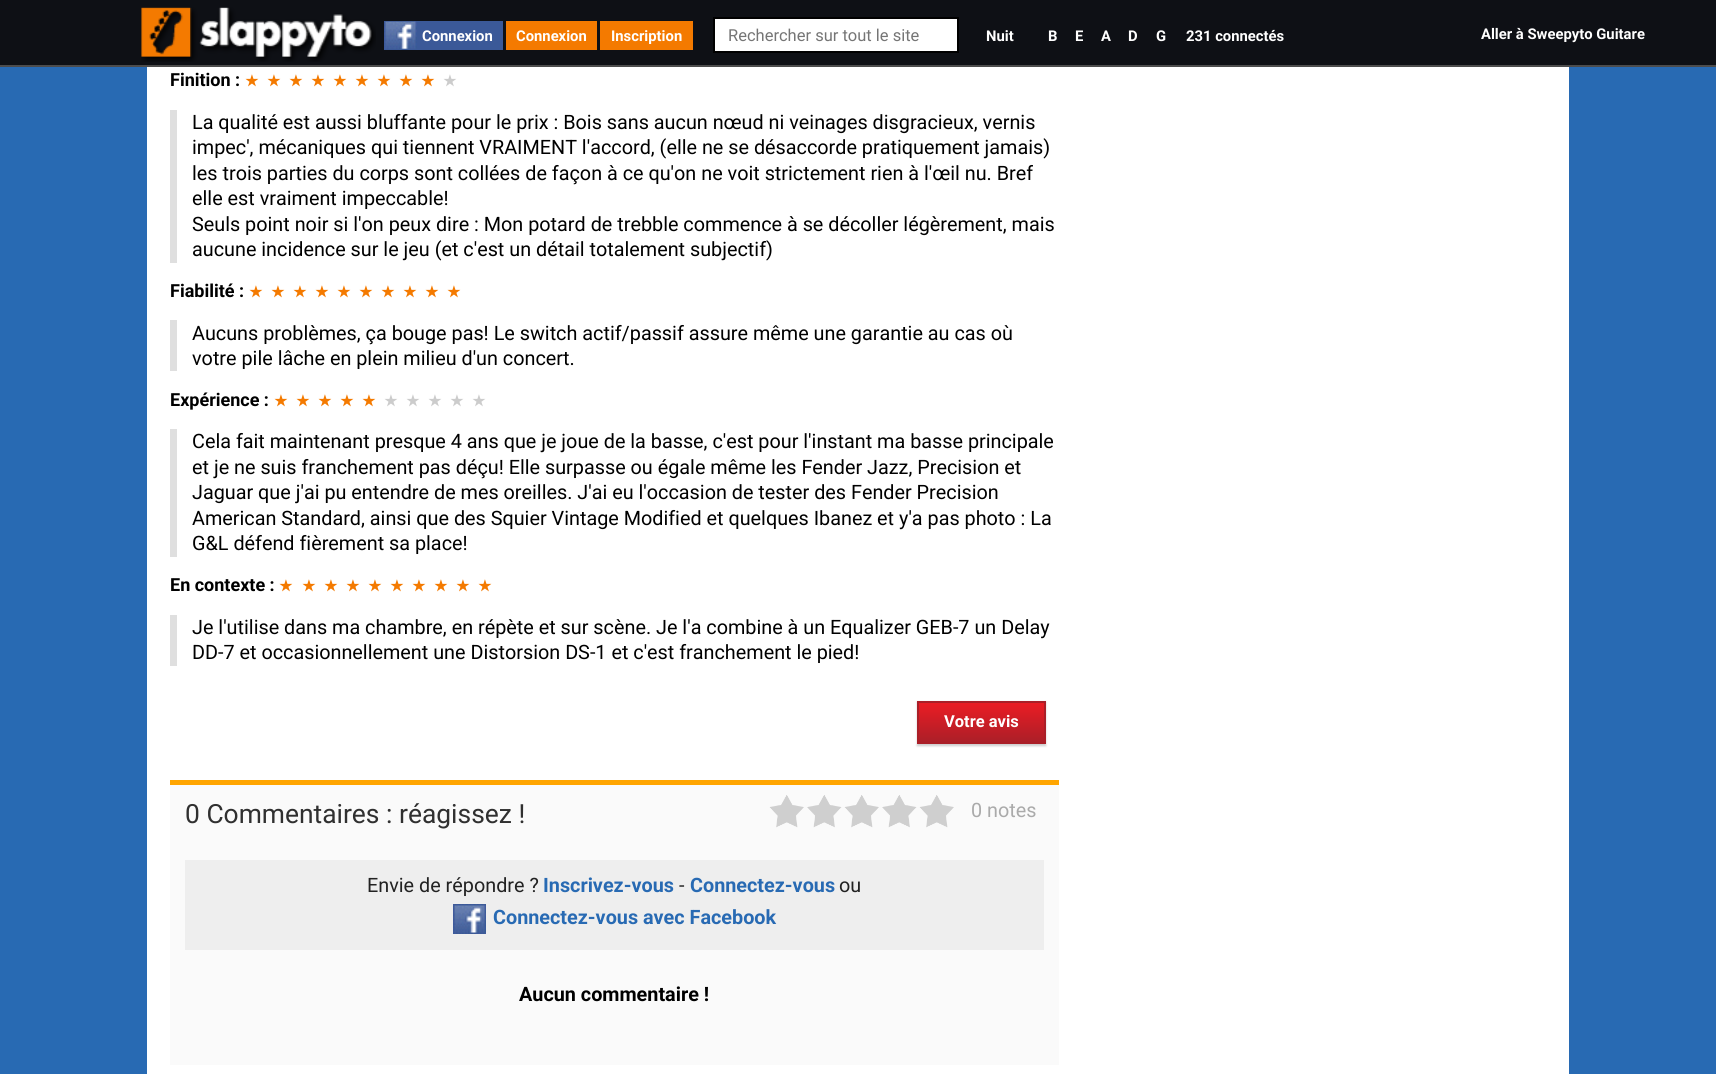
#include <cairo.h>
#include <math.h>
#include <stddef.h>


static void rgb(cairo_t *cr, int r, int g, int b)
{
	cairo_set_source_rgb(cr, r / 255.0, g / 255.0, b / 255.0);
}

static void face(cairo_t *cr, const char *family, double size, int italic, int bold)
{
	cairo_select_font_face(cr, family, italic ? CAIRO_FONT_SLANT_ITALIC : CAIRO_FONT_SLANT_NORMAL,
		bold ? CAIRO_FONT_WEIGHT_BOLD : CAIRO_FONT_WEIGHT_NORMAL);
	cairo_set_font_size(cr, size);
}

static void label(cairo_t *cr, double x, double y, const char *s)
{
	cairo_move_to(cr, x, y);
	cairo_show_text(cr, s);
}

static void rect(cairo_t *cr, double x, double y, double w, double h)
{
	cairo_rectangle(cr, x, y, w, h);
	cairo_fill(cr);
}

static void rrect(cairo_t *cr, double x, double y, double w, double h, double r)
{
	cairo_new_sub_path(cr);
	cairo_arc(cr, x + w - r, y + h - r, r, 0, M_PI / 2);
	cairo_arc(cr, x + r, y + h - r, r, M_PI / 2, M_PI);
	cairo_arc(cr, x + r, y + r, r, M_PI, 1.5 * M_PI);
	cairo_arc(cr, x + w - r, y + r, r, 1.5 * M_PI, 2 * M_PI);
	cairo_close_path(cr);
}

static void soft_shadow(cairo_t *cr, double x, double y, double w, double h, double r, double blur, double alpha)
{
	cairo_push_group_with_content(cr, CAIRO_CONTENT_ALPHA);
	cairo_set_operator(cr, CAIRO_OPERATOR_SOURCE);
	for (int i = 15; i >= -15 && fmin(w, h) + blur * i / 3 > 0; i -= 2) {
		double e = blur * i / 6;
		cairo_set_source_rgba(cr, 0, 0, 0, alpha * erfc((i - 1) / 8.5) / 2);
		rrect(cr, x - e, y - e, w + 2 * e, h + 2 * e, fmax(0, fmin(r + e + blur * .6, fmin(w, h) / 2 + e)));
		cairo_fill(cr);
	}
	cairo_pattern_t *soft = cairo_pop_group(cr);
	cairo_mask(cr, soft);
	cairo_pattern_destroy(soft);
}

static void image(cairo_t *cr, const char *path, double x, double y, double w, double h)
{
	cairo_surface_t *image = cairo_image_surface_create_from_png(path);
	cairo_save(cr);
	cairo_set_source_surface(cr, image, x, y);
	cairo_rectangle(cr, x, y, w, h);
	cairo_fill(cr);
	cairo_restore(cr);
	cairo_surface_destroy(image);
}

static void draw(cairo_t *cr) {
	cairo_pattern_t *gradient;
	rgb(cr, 40, 106, 179);
	cairo_paint(cr);
	rgb(cr, 14, 16, 21);
	rect(cr, 0, 0, 1716, 65);
	rgb(cr, 76, 76, 76);
	rect(cr, 0, 65, 1716, 2);
	image(cr, "image0.png", 141, 7, 235, 55);
	rgb(cr, 59, 89, 152);
	rect(cr, 384, 21, 119, 29);
	image(cr, "image1.png", 384, 21, 33, 28);
	face(cr, "Roboto", 14.8, 0, 1);
	rgb(cr, 255, 255, 255);
	label(cr, 422, 41, "Connexion");
	rgb(cr, 244, 122, 0);
	rect(cr, 506, 21, 91, 29);
	rgb(cr, 255, 255, 255);
	label(cr, 516, 41, "Connexion");
	rgb(cr, 244, 122, 0);
	rect(cr, 600, 21, 93, 29);
	rgb(cr, 255, 255, 255);
	label(cr, 611, 41, "Inscription");
	cairo_rectangle(cr, 714, 18, 244, 34);
	cairo_fill_preserve(cr);
	rgb(cr, 0, 0, 0);
	cairo_stroke(cr);
	face(cr, "Roboto", 16.5, 0, 0);
	rgb(cr, 117, 117, 117);
	label(cr, 728, 41, "Rechercher sur tout le site");
	face(cr, "Roboto", 14.8, 0, 1);
	rgb(cr, 255, 255, 255);
	label(cr, 986, 41, "Nuit");
	label(cr, 1048, 41, "B");
	label(cr, 1075, 41, "E");
	label(cr, 1101, 41, "A");
	label(cr, 1128, 41, "D");
	label(cr, 1156, 41, "G");
	label(cr, 1186, 41, "231 connectés");
	label(cr, 1481, 39, "Aller à Sweepyto Guitare");
	rect(cr, 147, 67, 1422, 1007);
	face(cr, "Roboto", 18, 0, 1);
	rgb(cr, 0, 0, 0);
	label(cr, 170, 86, "Finition :");
	face(cr, "DejaVu Sans", 15, 0, 1);
	rgb(cr, 244, 122, 0);
	label(cr, 245, 86, "★");
	label(cr, 267, 86, "★");
	label(cr, 289, 86, "★");
	label(cr, 311, 86, "★");
	label(cr, 333, 86, "★");
	label(cr, 355, 86, "★");
	label(cr, 377, 86, "★");
	label(cr, 399, 86, "★");
	label(cr, 421, 86, "★");
	rgb(cr, 204, 204, 204);
	label(cr, 443, 86, "★");
	rgb(cr, 223, 223, 223);
	rect(cr, 170, 110, 7, 153);
	face(cr, "Roboto", 19.8, 0, 0);
	rgb(cr, 0, 0, 0);
	label(cr, 192, 129, "La qualité est aussi bluffante pour le prix : Bois sans aucun nœud ni veinages disgracieux, vernis");
	label(cr, 192, 154, "impec', mécaniques qui tiennent VRAIMENT l'accord, (elle ne se désaccorde pratiquement jamais)");
	label(cr, 192, 180, "les trois parties du corps sont collées de façon à ce qu'on ne voit strictement rien à l'œil nu. Bref");
	label(cr, 192, 205, "elle est vraiment impeccable!");
	label(cr, 192, 231, "Seuls point noir si l'on peux dire : Mon potard de trebble commence à se décoller légèrement, mais");
	label(cr, 192, 256, "aucune incidence sur le jeu (et c'est un détail totalement subjectif)");
	face(cr, "Roboto", 18, 0, 1);
	label(cr, 170, 297, "Fiabilité :");
	face(cr, "DejaVu Sans", 15, 0, 1);
	rgb(cr, 244, 122, 0);
	label(cr, 249, 297, "★");
	label(cr, 271, 297, "★");
	label(cr, 293, 297, "★");
	label(cr, 315, 297, "★");
	label(cr, 337, 297, "★");
	label(cr, 359, 297, "★");
	label(cr, 381, 297, "★");
	label(cr, 403, 297, "★");
	label(cr, 425, 297, "★");
	label(cr, 447, 297, "★");
	rgb(cr, 223, 223, 223);
	rect(cr, 170, 320, 7, 51);
	face(cr, "Roboto", 19.8, 0, 0);
	rgb(cr, 0, 0, 0);
	label(cr, 192, 340, "Aucuns problèmes, ça bouge pas! Le switch actif/passif assure même une garantie au cas où");
	label(cr, 192, 365, "votre pile lâche en plein milieu d'un concert.");
	face(cr, "Roboto", 18, 0, 1);
	label(cr, 170, 406, "Expérience :");
	face(cr, "DejaVu Sans", 15, 0, 1);
	rgb(cr, 244, 122, 0);
	label(cr, 274, 406, "★");
	label(cr, 296, 406, "★");
	label(cr, 318, 406, "★");
	label(cr, 340, 406, "★");
	label(cr, 362, 406, "★");
	rgb(cr, 204, 204, 204);
	label(cr, 384, 406, "★");
	label(cr, 406, 406, "★");
	label(cr, 428, 406, "★");
	label(cr, 450, 406, "★");
	label(cr, 472, 406, "★");
	rgb(cr, 223, 223, 223);
	rect(cr, 170, 429, 7, 128);
	face(cr, "Roboto", 19.8, 0, 0);
	rgb(cr, 0, 0, 0);
	label(cr, 192, 448, "Cela fait maintenant presque 4 ans que je joue de la basse, c'est pour l'instant ma basse principale");
	label(cr, 192, 474, "et je ne suis franchement pas déçu! Elle surpasse ou égale même les Fender Jazz, Precision et");
	label(cr, 192, 499, "Jaguar que j'ai pu entendre de mes oreilles. J'ai eu l'occasion de tester des Fender Precision");
	label(cr, 192, 525, "American Standard, ainsi que des Squier Vintage Modified et quelques Ibanez et y'a pas photo : La");
	label(cr, 192, 550, "G&L défend fièrement sa place!");
	face(cr, "Roboto", 18, 0, 1);
	label(cr, 170, 591, "En contexte :");
	face(cr, "DejaVu Sans", 15, 0, 1);
	rgb(cr, 244, 122, 0);
	label(cr, 279, 591, "★");
	label(cr, 302, 591, "★");
	label(cr, 324, 591, "★");
	label(cr, 346, 591, "★");
	label(cr, 368, 591, "★");
	label(cr, 390, 591, "★");
	label(cr, 412, 591, "★");
	label(cr, 434, 591, "★");
	label(cr, 456, 591, "★");
	label(cr, 478, 591, "★");
	rgb(cr, 223, 223, 223);
	rect(cr, 170, 615, 7, 51);
	face(cr, "Roboto", 19.8, 0, 0);
	rgb(cr, 0, 0, 0);
	label(cr, 192, 634, "Je l'utilise dans ma chambre, en répète et sur scène. Je l'a combine à un Equalizer GEB-7 un Delay");
	label(cr, 192, 659, "DD-7 et occasionnellement une Distorsion DS-1 et c'est franchement le pied!");
	rgb(cr, 0, 0, 0);
	soft_shadow(cr, 917, 702, 129, 44, 0, 1, 0.2);
	gradient = cairo_pattern_create_linear(918, 702, 918, 743);
	cairo_pattern_add_color_stop_rgba(gradient, 0, 0.925, 0.11, 0.141, 1);
	cairo_pattern_add_color_stop_rgba(gradient, 1, 0.667, 0.122, 0.157, 1);
	cairo_set_source(cr, gradient);
	cairo_pattern_destroy(gradient);
	rect(cr, 919, 703, 125, 39);
	cairo_rectangle(cr, 918, 702, 127, 41);
	rgb(cr, 170, 31, 40);
	cairo_stroke(cr);
	face(cr, "Roboto", 16.5, 0, 1);
	rgb(cr, 255, 255, 255);
	label(cr, 944, 727, "Votre avis");
	rgb(cr, 250, 250, 250);
	rect(cr, 170, 785, 889, 280);
	rgb(cr, 255, 165, 0);
	rect(cr, 170, 780, 889, 5);
	face(cr, "Roboto", 26.4, 0, 0);
	rgb(cr, 48, 48, 48);
	label(cr, 185, 823, "0 Commentaires : réagissez !");
	image(cr, "image2.png", 769, 795, 35, 33);
	image(cr, "image3.png", 807, 795, 35, 33);
	image(cr, "image2.png", 844, 795, 35, 33);
	image(cr, "image3.png", 882, 795, 35, 33);
	image(cr, "image4.png", 919, 795, 35, 33);
	face(cr, "Roboto", 19.8, 0, 0);
	rgb(cr, 170, 170, 170);
	label(cr, 971, 817, "0 notes");
	rgb(cr, 238, 238, 238);
	rect(cr, 185, 860, 859, 90);
	rgb(cr, 34, 34, 34);
	label(cr, 367, 892, "Envie de répondre ?");
	face(cr, "Roboto", 19.8, 0, 1);
	rgb(cr, 40, 106, 179);
	label(cr, 543, 892, "Inscrivez-vous");
	face(cr, "Roboto", 19.8, 0, 0);
	rgb(cr, 34, 34, 34);
	label(cr, 679, 892, "-");
	face(cr, "Roboto", 19.8, 0, 1);
	rgb(cr, 40, 106, 179);
	label(cr, 690, 892, "Connectez-vous");
	face(cr, "Roboto", 19.8, 0, 0);
	rgb(cr, 34, 34, 34);
	label(cr, 839, 892, "ou");
	image(cr, "image5.png", 453, 904, 33, 30);
	face(cr, "Roboto", 19.8, 0, 1);
	rgb(cr, 40, 106, 179);
	label(cr, 493, 924, "Connectez-vous avec Facebook");
	rgb(cr, 0, 0, 0);
	label(cr, 519, 1001, "Aucun commentaire !");
}

int main(void) {
	cairo_surface_t *surface = cairo_image_surface_create(CAIRO_FORMAT_RGB24, 1716, 1074);
	cairo_t *cr = cairo_create(surface);
	cairo_font_options_t *options = cairo_font_options_create();
	cairo_font_options_set_hint_metrics(options, CAIRO_HINT_METRICS_OFF);
	cairo_font_options_set_hint_style(options, CAIRO_HINT_STYLE_NONE);
	cairo_set_font_options(cr, options);
	cairo_set_miter_limit(cr, 4);
	draw(cr);
	cairo_surface_write_to_png(surface, "render.png");
	cairo_font_options_destroy(options);
	cairo_destroy(cr);
	cairo_surface_destroy(surface);
	return 0;
}
